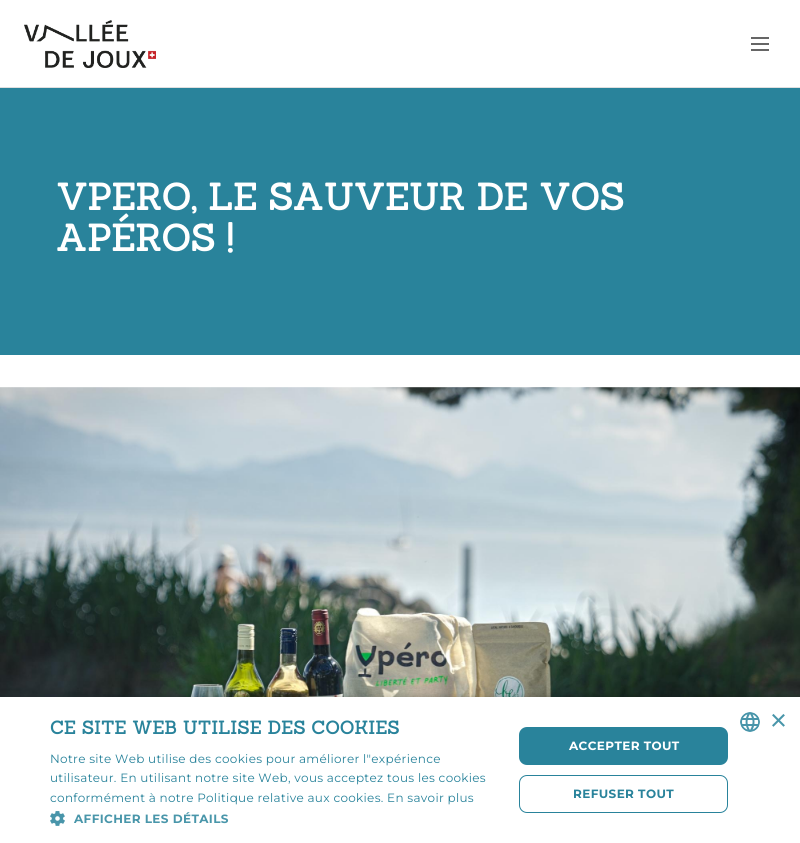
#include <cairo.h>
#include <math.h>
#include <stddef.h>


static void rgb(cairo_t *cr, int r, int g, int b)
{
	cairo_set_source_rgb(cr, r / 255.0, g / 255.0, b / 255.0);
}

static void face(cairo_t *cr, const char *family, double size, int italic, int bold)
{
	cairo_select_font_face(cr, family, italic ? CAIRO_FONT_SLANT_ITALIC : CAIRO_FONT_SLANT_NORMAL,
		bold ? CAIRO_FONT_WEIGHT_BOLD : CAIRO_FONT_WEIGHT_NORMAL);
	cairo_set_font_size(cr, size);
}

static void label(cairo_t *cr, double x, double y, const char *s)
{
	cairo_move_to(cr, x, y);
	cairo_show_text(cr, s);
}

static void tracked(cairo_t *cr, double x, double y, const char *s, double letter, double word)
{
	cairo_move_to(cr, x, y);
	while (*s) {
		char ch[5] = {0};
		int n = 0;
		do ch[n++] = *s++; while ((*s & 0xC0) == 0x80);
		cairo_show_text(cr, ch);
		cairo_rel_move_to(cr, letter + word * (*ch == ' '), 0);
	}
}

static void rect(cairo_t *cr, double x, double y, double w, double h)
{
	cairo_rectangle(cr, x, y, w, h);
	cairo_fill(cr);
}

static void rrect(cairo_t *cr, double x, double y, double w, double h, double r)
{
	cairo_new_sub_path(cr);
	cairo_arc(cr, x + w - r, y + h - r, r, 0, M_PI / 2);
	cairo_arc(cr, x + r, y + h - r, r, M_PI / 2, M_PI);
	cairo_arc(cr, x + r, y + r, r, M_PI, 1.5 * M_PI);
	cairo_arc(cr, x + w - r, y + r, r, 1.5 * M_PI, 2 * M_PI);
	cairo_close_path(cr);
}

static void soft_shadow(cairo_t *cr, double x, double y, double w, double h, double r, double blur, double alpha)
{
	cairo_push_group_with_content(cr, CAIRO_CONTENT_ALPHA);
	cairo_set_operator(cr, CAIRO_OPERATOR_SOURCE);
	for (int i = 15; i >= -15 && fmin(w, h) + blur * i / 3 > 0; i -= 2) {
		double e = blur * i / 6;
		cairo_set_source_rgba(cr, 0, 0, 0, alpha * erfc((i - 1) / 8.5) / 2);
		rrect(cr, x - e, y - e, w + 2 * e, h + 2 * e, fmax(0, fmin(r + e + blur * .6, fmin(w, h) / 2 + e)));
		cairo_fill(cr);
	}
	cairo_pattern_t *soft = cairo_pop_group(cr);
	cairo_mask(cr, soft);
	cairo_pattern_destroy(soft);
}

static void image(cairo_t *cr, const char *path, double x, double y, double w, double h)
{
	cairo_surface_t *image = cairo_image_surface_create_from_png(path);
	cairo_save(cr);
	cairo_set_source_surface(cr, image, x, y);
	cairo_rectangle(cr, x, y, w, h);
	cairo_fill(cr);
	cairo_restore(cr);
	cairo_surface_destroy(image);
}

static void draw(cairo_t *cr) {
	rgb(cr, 255, 255, 255);
	cairo_paint(cr);
	rgb(cr, 223, 223, 223);
	rect(cr, 0, 87, 800, 1);
	image(cr, "image0.png", 24, 20, 132, 48);
	image(cr, "image1.png", 751, 37, 18, 14);
	rgb(cr, 41, 131, 155);
	rect(cr, 0, 88, 800, 267);
	face(cr, "Sanchez", 36.75, 0, 1);
	rgb(cr, 255, 255, 255);
	label(cr, 56, 210, "VPERO, LE SAUVEUR DE VOS");
	label(cr, 56, 251, "APÉROS !");
	image(cr, "image2.png", 0, 387, 800, 310);
	rgb(cr, 0, 0, 0);
	soft_shadow(cr, 1, 699, 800, 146, 0, 4, 0.35);
	rgb(cr, 255, 255, 255);
	rect(cr, 0, 697, 800, 146);
	face(cr, "Sanchez", 18, 0, 1);
	rgb(cr, 41, 131, 155);
	tracked(cr, 50, 734, "CE SITE WEB UTILISE DES COOKIES", 0.3, 0);
	face(cr, "Montserrat Thin", 12, 0, 0);
	tracked(cr, 50, 763, "Notre site Web utilise des cookies pour améliorer l\"expérience", 0.3, 0);
	tracked(cr, 50, 782, "utilisateur. En utilisant notre site Web, vous acceptez tous les cookies", 0.3, 0);
	tracked(cr, 50, 802, "conformément à notre Politique relative aux cookies. En savoir plus", 0.3, 0);
	image(cr, "image3.png", 50, 811, 15, 15);
	face(cr, "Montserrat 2 Thin", 12, 0, 0);
	rgb(cr, 73, 150, 170);
	tracked(cr, 74, 823, "AFFICHER LES DÉTAILS", 0.4, 0);
	rgb(cr, 41, 131, 155);
	rrect(cr, 519, 727, 209, 38, 8);
	cairo_fill(cr);
	rgb(cr, 255, 255, 255);
	tracked(cr, 569, 750, "ACCEPTER TOUT", 0.4, 0);
	rrect(cr, 519.5, 775.5, 208, 37, 7.5);
	rgb(cr, 41, 131, 155);
	cairo_set_line_width(cr, 1);
	cairo_stroke(cr);
	tracked(cr, 573, 798, "REFUSER TOUT", 0.4, 0);
	image(cr, "image4.png", 740, 712, 20, 20);
	face(cr, "Liberation Sans", 29, 0, 0);
	rgb(cr, 73, 150, 170);
	label(cr, 770, 730, "×");
}

int main(void) {
	cairo_surface_t *surface = cairo_image_surface_create(CAIRO_FORMAT_RGB24, 800, 843);
	cairo_t *cr = cairo_create(surface);
	cairo_font_options_t *options = cairo_font_options_create();
	cairo_font_options_set_hint_metrics(options, CAIRO_HINT_METRICS_OFF);
	cairo_font_options_set_hint_style(options, CAIRO_HINT_STYLE_NONE);
	cairo_set_font_options(cr, options);
	cairo_set_miter_limit(cr, 4);
	draw(cr);
	cairo_surface_write_to_png(surface, "render.png");
	cairo_font_options_destroy(options);
	cairo_destroy(cr);
	cairo_surface_destroy(surface);
	return 0;
}
